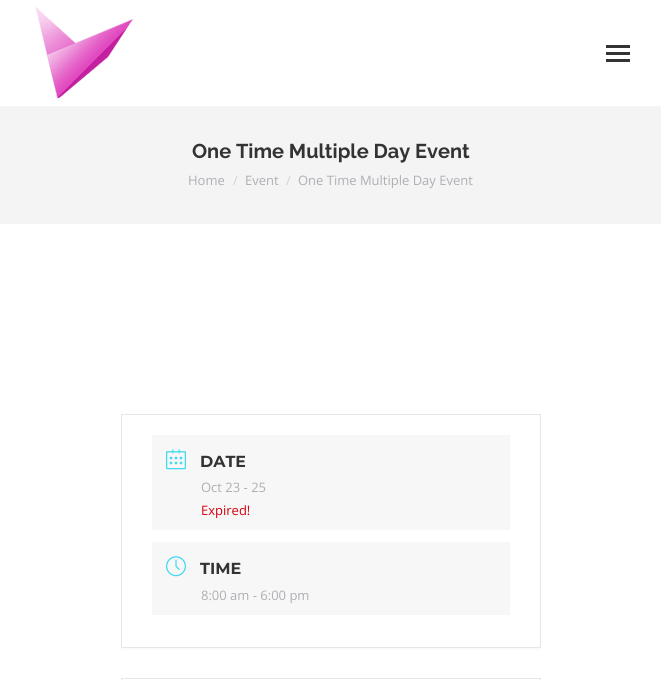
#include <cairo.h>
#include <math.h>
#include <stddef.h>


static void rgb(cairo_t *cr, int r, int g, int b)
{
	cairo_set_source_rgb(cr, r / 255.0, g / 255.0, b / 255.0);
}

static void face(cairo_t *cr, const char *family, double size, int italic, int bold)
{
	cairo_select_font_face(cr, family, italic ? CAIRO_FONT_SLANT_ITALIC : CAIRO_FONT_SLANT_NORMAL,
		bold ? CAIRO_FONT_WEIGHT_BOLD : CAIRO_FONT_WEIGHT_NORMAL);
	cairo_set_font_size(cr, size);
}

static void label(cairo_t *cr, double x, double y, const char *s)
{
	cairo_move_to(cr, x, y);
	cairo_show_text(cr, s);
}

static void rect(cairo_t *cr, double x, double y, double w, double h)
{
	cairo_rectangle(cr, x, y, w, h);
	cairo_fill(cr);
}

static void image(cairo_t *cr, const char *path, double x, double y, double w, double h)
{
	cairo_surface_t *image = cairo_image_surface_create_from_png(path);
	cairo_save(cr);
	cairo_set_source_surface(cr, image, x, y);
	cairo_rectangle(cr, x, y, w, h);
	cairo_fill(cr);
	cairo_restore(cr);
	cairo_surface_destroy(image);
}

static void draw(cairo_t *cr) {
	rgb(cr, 255, 255, 255);
	cairo_paint(cr);
	image(cr, "image0.png", 35, 7, 99, 93);
	rgb(cr, 51, 51, 51);
	rect(cr, 606, 45, 24, 3);
	rect(cr, 606, 52, 24, 3);
	rect(cr, 606, 59, 24, 3);
	rgb(cr, 244, 244, 245);
	rect(cr, 0, 106, 661, 118);
	face(cr, "Raleway", 20, 0, 1);
	rgb(cr, 51, 51, 51);
	label(cr, 192, 158, "One Time Multiple Day Event");
	face(cr, "Open Sans", 13, 0, 0);
	rgb(cr, 173, 175, 179);
	label(cr, 188, 185, "Home");
	rgb(cr, 209, 210, 212);
	label(cr, 233, 185, "/");
	rgb(cr, 173, 175, 179);
	label(cr, 245, 185, "Event");
	rgb(cr, 209, 210, 212);
	label(cr, 286, 185, "/");
	rgb(cr, 173, 175, 179);
	label(cr, 298, 185, "One Time Multiple Day Event");
	rgb(cr, 251, 251, 251);
	rect(cr, 121, 648, 420, 2);
	cairo_rectangle(cr, 121.5, 414.5, 419, 233);
	rgb(cr, 230, 230, 230);
	cairo_set_line_width(cr, 1);
	cairo_stroke(cr);
	rgb(cr, 247, 247, 247);
	rect(cr, 152, 435, 358, 95);
	image(cr, "image1.png", 166, 449, 20, 21);
	face(cr, "Montserrat", 16, 0, 1);
	rgb(cr, 51, 51, 51);
	label(cr, 200, 467, "DATE");
	face(cr, "Open Sans", 13, 0, 0);
	rgb(cr, 173, 175, 179);
	label(cr, 201, 492, "Oct 23 - 25");
	rgb(cr, 216, 0, 12);
	label(cr, 201, 515, "Expired!");
	rgb(cr, 247, 247, 247);
	rect(cr, 152, 542, 358, 73);
	image(cr, "image2.png", 166, 556, 20, 21);
	face(cr, "Montserrat", 16, 0, 1);
	rgb(cr, 51, 51, 51);
	label(cr, 200, 574, "TIME");
	face(cr, "Open Sans", 13, 0, 0);
	rgb(cr, 173, 175, 179);
	label(cr, 201, 600, "8:00 am - 6:00 pm");
	cairo_rectangle(cr, 121.5, 678.5, 419, 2);
	rgb(cr, 230, 230, 230);
	cairo_stroke(cr);
}

int main(void) {
	cairo_surface_t *surface = cairo_image_surface_create(CAIRO_FORMAT_RGB24, 661, 680);
	cairo_t *cr = cairo_create(surface);
	cairo_font_options_t *options = cairo_font_options_create();
	cairo_font_options_set_hint_metrics(options, CAIRO_HINT_METRICS_OFF);
	cairo_font_options_set_hint_style(options, CAIRO_HINT_STYLE_NONE);
	cairo_set_font_options(cr, options);
	cairo_set_miter_limit(cr, 4);
	draw(cr);
	cairo_surface_write_to_png(surface, "render.png");
	cairo_font_options_destroy(options);
	cairo_destroy(cr);
	cairo_surface_destroy(surface);
	return 0;
}
